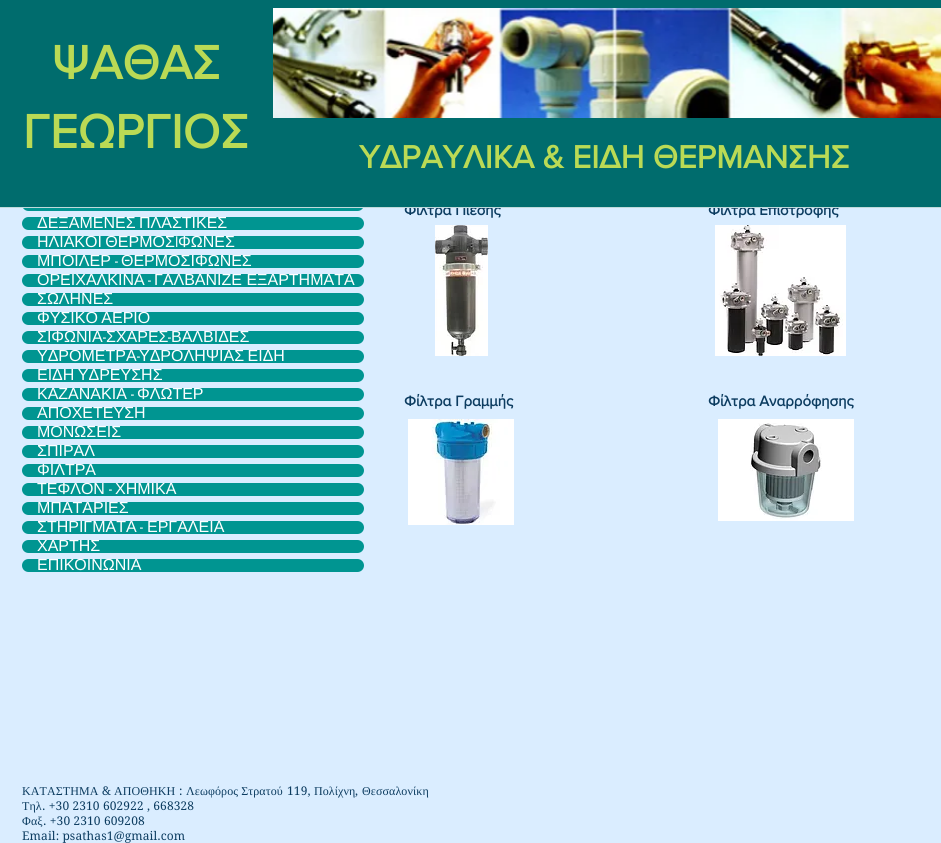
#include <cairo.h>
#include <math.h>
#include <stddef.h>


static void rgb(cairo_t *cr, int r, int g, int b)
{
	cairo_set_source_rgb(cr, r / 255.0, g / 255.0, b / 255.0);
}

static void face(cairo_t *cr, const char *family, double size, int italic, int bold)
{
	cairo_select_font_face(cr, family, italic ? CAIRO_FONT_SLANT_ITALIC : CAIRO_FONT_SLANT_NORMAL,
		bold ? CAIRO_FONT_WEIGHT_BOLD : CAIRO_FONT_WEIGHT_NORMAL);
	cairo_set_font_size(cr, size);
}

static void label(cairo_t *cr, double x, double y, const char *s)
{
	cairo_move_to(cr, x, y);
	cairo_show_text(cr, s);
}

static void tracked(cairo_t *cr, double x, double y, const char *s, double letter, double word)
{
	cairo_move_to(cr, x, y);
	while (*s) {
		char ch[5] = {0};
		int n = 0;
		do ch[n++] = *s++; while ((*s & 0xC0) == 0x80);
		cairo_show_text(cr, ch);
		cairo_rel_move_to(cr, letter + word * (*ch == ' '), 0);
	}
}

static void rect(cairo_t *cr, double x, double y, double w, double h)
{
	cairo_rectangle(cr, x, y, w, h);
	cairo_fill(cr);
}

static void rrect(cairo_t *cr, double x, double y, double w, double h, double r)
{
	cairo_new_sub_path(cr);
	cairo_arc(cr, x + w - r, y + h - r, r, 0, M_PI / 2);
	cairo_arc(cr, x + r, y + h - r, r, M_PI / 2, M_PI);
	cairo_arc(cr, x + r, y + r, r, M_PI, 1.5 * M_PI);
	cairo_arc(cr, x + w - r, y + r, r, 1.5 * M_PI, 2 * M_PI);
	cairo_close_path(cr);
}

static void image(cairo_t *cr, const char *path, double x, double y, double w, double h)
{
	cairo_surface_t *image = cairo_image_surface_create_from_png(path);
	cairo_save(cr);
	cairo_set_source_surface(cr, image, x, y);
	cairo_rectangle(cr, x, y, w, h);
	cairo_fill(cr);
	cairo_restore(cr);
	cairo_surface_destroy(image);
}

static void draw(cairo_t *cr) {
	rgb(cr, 218, 237, 255);
	cairo_paint(cr);
	face(cr, "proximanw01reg", 15, 0, 1);
	rgb(cr, 12, 60, 96);
	label(cr, 404, 215, "Φίλτρα Πίεσης");
	label(cr, 708, 215, "Φίλτρα Επιστροφής");
	rgb(cr, 0, 149, 145);
	rrect(cr, 22, 198, 342, 13, 6.5);
	cairo_fill(cr);
	rgb(cr, 0, 108, 109);
	rect(cr, 0, 0, 941, 207);
	rgb(cr, 191, 218, 219);
	rect(cr, 0, 207, 941, 1);
	face(cr, "proximanw01reg", 49, 0, 1);
	rgb(cr, 186, 218, 85);
	label(cr, 51, 79, "ΨΑΘΑΣ");
	label(cr, 23, 148, "ΓΕΩΡΓΙΟΣ");
	image(cr, "image0.png", 273, 8, 668, 110);
	face(cr, "proximanw01reg", 33, 0, 1);
	label(cr, 359, 168, "ΥΔΡΑΥΛΙΚΑ & ΕΙΔΗ ΘΕΡΜΑΝΣΗΣ");
	rgb(cr, 0, 149, 145);
	rrect(cr, 22, 217, 342, 13, 6.5);
	cairo_fill(cr);
	face(cr, "Liberation Sans", 16, 0, 0);
	rgb(cr, 255, 255, 255);
	tracked(cr, 37, 228, "ΔΕΞΑΜΕΝΕΣ ΠΛΑΣΤΙΚΕΣ", 0, -1);
	rgb(cr, 0, 149, 145);
	rrect(cr, 22, 236, 342, 13, 6.5);
	cairo_fill(cr);
	rgb(cr, 255, 255, 255);
	tracked(cr, 37, 247, "ΗΛΙΑΚΟΙ ΘΕΡΜΟΣ", 0, -1);
	face(cr, "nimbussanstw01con", 16, 0, 0);
	label(cr, 175, 247, "I");
	face(cr, "Liberation Sans", 16, 0, 0);
	label(cr, 178, 247, "ΦΩΝΕΣ");
	rgb(cr, 0, 149, 145);
	rrect(cr, 22, 255, 342, 13, 6.5);
	cairo_fill(cr);
	rgb(cr, 255, 255, 255);
	label(cr, 37, 266, "ΜΠΟΙΛΕΡ");
	face(cr, "nimbussanstw01con", 16, 0, 0);
	label(cr, 115, 266, "-");
	face(cr, "Liberation Sans", 16, 0, 0);
	label(cr, 121, 266, "ΘΕΡΜΟΣΙΦΩΝΕΣ");
	rgb(cr, 0, 149, 145);
	rrect(cr, 22, 274, 342, 13, 6.5);
	cairo_fill(cr);
	rgb(cr, 255, 255, 255);
	label(cr, 37, 285, "ΟΡΕΙΧΑΛΚΙΝΑ");
	face(cr, "nimbussanstw01con", 16, 0, 0);
	label(cr, 148, 285, "-");
	face(cr, "Liberation Sans", 16, 0, 0);
	label(cr, 154, 285, "ΓΑΛΒΑΝΙΖΕ ΕΞΑΡΤΗΜΑΤΑ");
	rgb(cr, 0, 149, 145);
	rrect(cr, 22, 293, 342, 13, 6.5);
	cairo_fill(cr);
	rgb(cr, 255, 255, 255);
	label(cr, 37, 304, "ΣΩΛΗΝΕΣ");
	rgb(cr, 0, 149, 145);
	rrect(cr, 22, 312, 342, 13, 6.5);
	cairo_fill(cr);
	rgb(cr, 255, 255, 255);
	tracked(cr, 37, 323, "ΦΥΣΙΚΟ ΑΕΡΙΟ", 0, -1);
	rgb(cr, 0, 149, 145);
	rrect(cr, 22, 331, 342, 13, 6.5);
	cairo_fill(cr);
	rgb(cr, 255, 255, 255);
	label(cr, 37, 342, "ΣΙΦΩΝΙΑ");
	face(cr, "nimbussanstw01con", 16, 0, 0);
	label(cr, 103, 342, "-");
	face(cr, "Liberation Sans", 16, 0, 0);
	label(cr, 106, 342, "ΣΧΑΡΕΣ");
	face(cr, "nimbussanstw01con", 16, 0, 0);
	label(cr, 168, 342, "-");
	face(cr, "Liberation Sans", 16, 0, 0);
	label(cr, 171, 342, "ΒΑΛΒΙΔΕΣ");
	rgb(cr, 0, 149, 145);
	rrect(cr, 22, 350, 342, 13, 6.5);
	cairo_fill(cr);
	rgb(cr, 255, 255, 255);
	label(cr, 37, 361, "ΥΔΡΟΜΕΤΡΑ");
	face(cr, "nimbussanstw01con", 16, 0, 0);
	label(cr, 137, 361, "-");
	face(cr, "Liberation Sans", 16, 0, 0);
	tracked(cr, 139, 361, "ΥΔΡΟΛΗΨΙΑΣ ΕΙΔΗ", 0, -1);
	rgb(cr, 0, 149, 145);
	rrect(cr, 22, 369, 342, 13, 6.5);
	cairo_fill(cr);
	rgb(cr, 255, 255, 255);
	tracked(cr, 37, 380, "ΕΙΔΗ ΥΔΡΕΥΣΗΣ", 0, -1);
	rgb(cr, 0, 149, 145);
	rrect(cr, 22, 388, 342, 13, 6.5);
	cairo_fill(cr);
	rgb(cr, 255, 255, 255);
	label(cr, 37, 399, "ΚΑΖΑΝΑΚΙΑ");
	face(cr, "nimbussanstw01con", 16, 0, 0);
	label(cr, 131, 399, "-");
	face(cr, "Liberation Sans", 16, 0, 0);
	label(cr, 137, 399, "ΦΛΩΤΕΡ");
	rgb(cr, 0, 149, 145);
	rrect(cr, 22, 407, 342, 13, 6.5);
	cairo_fill(cr);
	rgb(cr, 255, 255, 255);
	label(cr, 37, 418, "ΑΠΟΧΕΤΕΥΣΗ");
	rgb(cr, 0, 149, 145);
	rrect(cr, 22, 426, 342, 13, 6.5);
	cairo_fill(cr);
	rgb(cr, 255, 255, 255);
	label(cr, 37, 437, "ΜΟΝΩΣΕΙΣ");
	rgb(cr, 0, 149, 145);
	rrect(cr, 22, 445, 342, 13, 6.5);
	cairo_fill(cr);
	rgb(cr, 255, 255, 255);
	label(cr, 37, 456, "ΣΠΙΡΑΛ");
	rgb(cr, 0, 149, 145);
	rrect(cr, 22, 464, 342, 13, 6.5);
	cairo_fill(cr);
	rgb(cr, 255, 255, 255);
	label(cr, 37, 475, "ΦΙΛΤΡΑ");
	rgb(cr, 0, 149, 145);
	rrect(cr, 22, 483, 342, 13, 6.5);
	cairo_fill(cr);
	rgb(cr, 255, 255, 255);
	label(cr, 37, 494, "ΤΕΦΛΟΝ");
	face(cr, "nimbussanstw01con", 16, 0, 0);
	label(cr, 109, 494, "-");
	face(cr, "Liberation Sans", 16, 0, 0);
	label(cr, 115, 494, "ΧΗΜΙΚΑ");
	rgb(cr, 0, 149, 145);
	rrect(cr, 22, 502, 342, 13, 6.5);
	cairo_fill(cr);
	rgb(cr, 255, 255, 255);
	label(cr, 37, 513, "ΜΠΑΤΑΡΙΕΣ");
	rgb(cr, 0, 149, 145);
	rrect(cr, 22, 521, 342, 13, 6.5);
	cairo_fill(cr);
	rgb(cr, 255, 255, 255);
	label(cr, 37, 532, "ΣΤΗΡΙΓΜΑΤΑ");
	face(cr, "nimbussanstw01con", 16, 0, 0);
	label(cr, 140, 532, "-");
	face(cr, "Liberation Sans", 16, 0, 0);
	label(cr, 147, 532, "ΕΡΓΑΛΕΙΑ");
	rgb(cr, 0, 149, 145);
	rrect(cr, 22, 540, 342, 13, 6.5);
	cairo_fill(cr);
	rgb(cr, 255, 255, 255);
	label(cr, 37, 551, "ΧΑΡΤΗΣ");
	rgb(cr, 0, 149, 145);
	rrect(cr, 22, 559, 342, 13, 6.5);
	cairo_fill(cr);
	rgb(cr, 255, 255, 255);
	label(cr, 37, 570, "ΕΠΙΚΟΙΝΩΝΙΑ");
	image(cr, "image1.png", 435, 225, 53, 131);
	image(cr, "image2.png", 715, 225, 131, 131);
	face(cr, "proximanw01reg", 15, 0, 1);
	rgb(cr, 12, 60, 96);
	label(cr, 404, 406, "Φίλτρα Γραμμής");
	label(cr, 708, 406, "Φίλτρα Αναρρόφησης");
	image(cr, "image3.png", 408, 419, 106, 106);
	image(cr, "image4.png", 718, 419, 136, 102);
	face(cr, "Liberation Serif", 12, 0, 0);
	tracked(cr, 22, 795, "ΚΑΤΑΣΤΗΜΑ", 0.1, 0);
	face(cr, "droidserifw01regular", 12, 0, 0);
	tracked(cr, 102, 795, "&", 0.1, 0);
	face(cr, "Liberation Serif", 12, 0, 0);
	tracked(cr, 114, 795, "ΑΠΟΘΗΚΗ", 0.1, 0);
	face(cr, "droidserifw01regular", 12, 0, 0);
	tracked(cr, 179, 795, ":", 0.1, 0);
	face(cr, "Liberation Serif", 12, 0, 0);
	tracked(cr, 186, 795, "Λεωφόρος Στρατού", 0.1, 0);
	face(cr, "droidserifw01regular", 12, 0, 0);
	tracked(cr, 287, 795, "119,", 0.1, 0);
	face(cr, "Liberation Serif", 12, 0, 0);
	tracked(cr, 314, 795, "Πολίχνη", 0.1, 0);
	face(cr, "droidserifw01regular", 12, 0, 0);
	tracked(cr, 355, 795, ",", 0.1, 0);
	face(cr, "Liberation Serif", 12, 0, 0);
	tracked(cr, 362, 795, "Θεσσαλονίκη", 0.1, 0);
	tracked(cr, 22, 810, "Τηλ", 0.1, 0);
	face(cr, "droidserifw01regular", 12, 0, 0);
	tracked(cr, 42, 810, ". +30 2310 602922 , 668328", 0.1, 0);
	face(cr, "Liberation Serif", 12, 0, 0);
	tracked(cr, 22, 825, "Φαξ", 0.1, 0);
	face(cr, "droidserifw01regular", 12, 0, 0);
	tracked(cr, 43, 825, ". +30 2310 609208", 0.1, 0);
	tracked(cr, 22, 840, "Email: psathas1@gmail.com", 0.1, 0);
}

int main(void) {
	cairo_surface_t *surface = cairo_image_surface_create(CAIRO_FORMAT_RGB24, 941, 843);
	cairo_t *cr = cairo_create(surface);
	cairo_font_options_t *options = cairo_font_options_create();
	cairo_font_options_set_hint_metrics(options, CAIRO_HINT_METRICS_OFF);
	cairo_font_options_set_hint_style(options, CAIRO_HINT_STYLE_NONE);
	cairo_set_font_options(cr, options);
	cairo_set_miter_limit(cr, 4);
	draw(cr);
	cairo_surface_write_to_png(surface, "render.png");
	cairo_font_options_destroy(options);
	cairo_destroy(cr);
	cairo_surface_destroy(surface);
	return 0;
}
